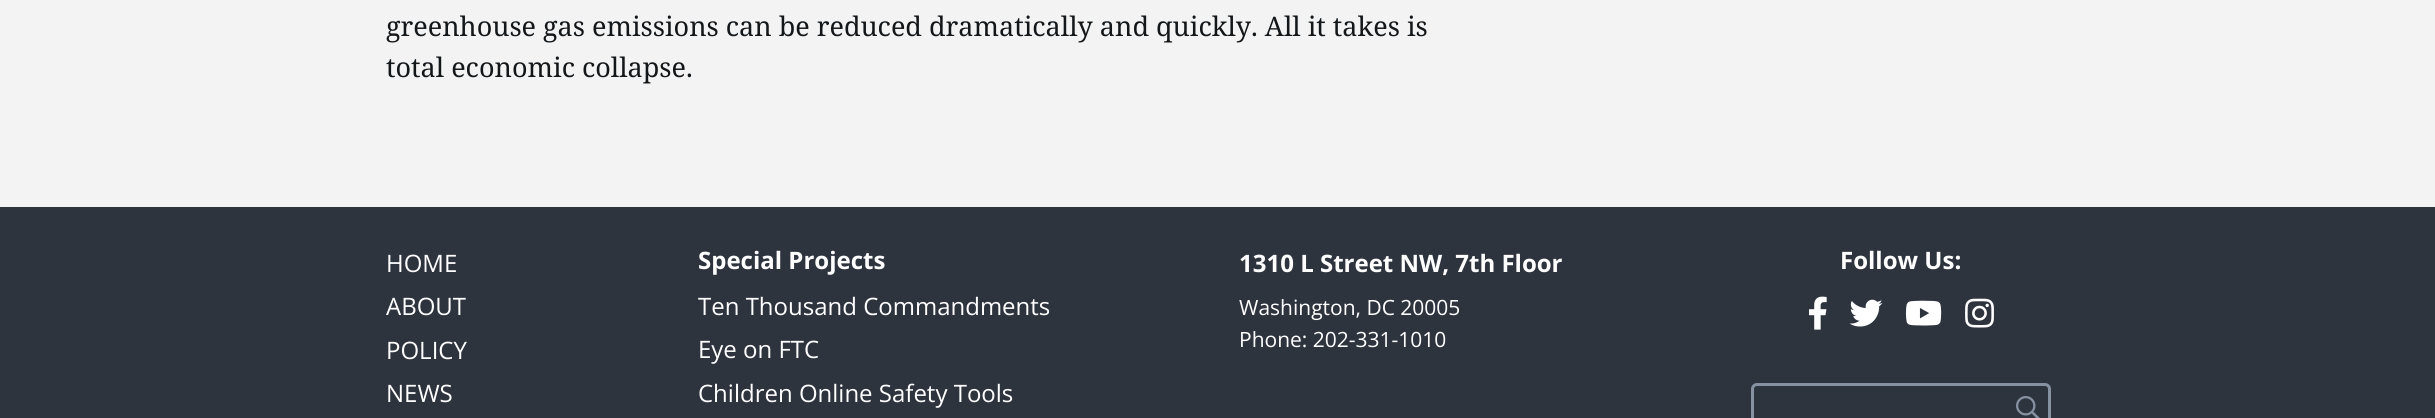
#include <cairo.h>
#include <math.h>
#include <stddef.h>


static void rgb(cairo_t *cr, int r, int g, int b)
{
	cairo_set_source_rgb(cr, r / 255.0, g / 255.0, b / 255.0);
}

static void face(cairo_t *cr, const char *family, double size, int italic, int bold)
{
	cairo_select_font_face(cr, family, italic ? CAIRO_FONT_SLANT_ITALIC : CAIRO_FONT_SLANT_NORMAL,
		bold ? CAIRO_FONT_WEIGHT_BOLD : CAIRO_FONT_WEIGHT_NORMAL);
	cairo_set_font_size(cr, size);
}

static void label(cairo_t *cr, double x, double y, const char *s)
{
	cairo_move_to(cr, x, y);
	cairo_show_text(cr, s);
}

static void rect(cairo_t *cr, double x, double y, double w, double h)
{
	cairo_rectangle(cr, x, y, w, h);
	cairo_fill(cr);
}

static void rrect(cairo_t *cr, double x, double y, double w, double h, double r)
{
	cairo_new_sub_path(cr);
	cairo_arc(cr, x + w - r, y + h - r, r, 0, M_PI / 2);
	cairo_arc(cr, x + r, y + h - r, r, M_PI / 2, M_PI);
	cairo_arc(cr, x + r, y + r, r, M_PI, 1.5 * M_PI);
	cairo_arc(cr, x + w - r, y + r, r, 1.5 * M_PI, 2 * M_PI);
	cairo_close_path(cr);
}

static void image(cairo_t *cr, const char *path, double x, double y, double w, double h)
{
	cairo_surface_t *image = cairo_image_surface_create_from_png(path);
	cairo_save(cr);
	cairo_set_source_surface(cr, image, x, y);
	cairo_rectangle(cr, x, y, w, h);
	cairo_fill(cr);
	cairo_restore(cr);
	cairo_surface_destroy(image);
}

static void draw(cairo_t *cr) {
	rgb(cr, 243, 243, 243);
	cairo_paint(cr);
	face(cr, "Noto Serif", 27, 0, 0);
	rgb(cr, 20, 23, 26);
	label(cr, 386, 36, "greenhouse gas emissions can be reduced dramatically and quickly. All it takes is");
	label(cr, 386, 77, "total economic collapse.");
	rgb(cr, 46, 52, 62);
	rect(cr, 0, 207, 2435, 211);
	face(cr, "Open Sans", 24, 0, 0);
	rgb(cr, 255, 255, 255);
	label(cr, 386, 272, "HOME");
	label(cr, 386, 315, "ABOUT");
	label(cr, 386, 359, "POLICY");
	label(cr, 386, 402, "NEWS");
	face(cr, "Open Sans", 24, 0, 1);
	label(cr, 698, 269, "Special Projects");
	face(cr, "Open Sans", 24, 0, 0);
	label(cr, 698, 315, "Ten Thousand Commandments");
	label(cr, 698, 358, "Eye on FTC");
	label(cr, 698, 402, "Children Online Safety Tools");
	face(cr, "Open Sans", 24, 0, 1);
	label(cr, 1239, 272, "1310 L Street NW, 7th Floor");
	face(cr, "Open Sans", 21, 0, 0);
	label(cr, 1239, 315, "Washington, DC 20005");
	label(cr, 1239, 347, "Phone: 202-331-1010");
	face(cr, "Open Sans", 24, 0, 1);
	label(cr, 1840, 269, "Follow Us:");
	image(cr, "image0.png", 1809, 296, 18, 34);
	image(cr, "image1.png", 1849, 299, 34, 28);
	image(cr, "image2.png", 1905, 300, 37, 26);
	image(cr, "image3.png", 1965, 298, 29, 30);
	rrect(cr, 1752.5, 384.5, 297, 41, 4.5);
	rgb(cr, 134, 145, 162);
	cairo_set_line_width(cr, 3);
	cairo_stroke(cr);
	image(cr, "image4.png", 2016, 396, 24, 22);
}

int main(void) {
	cairo_surface_t *surface = cairo_image_surface_create(CAIRO_FORMAT_RGB24, 2435, 418);
	cairo_t *cr = cairo_create(surface);
	cairo_font_options_t *options = cairo_font_options_create();
	cairo_font_options_set_hint_metrics(options, CAIRO_HINT_METRICS_OFF);
	cairo_font_options_set_hint_style(options, CAIRO_HINT_STYLE_NONE);
	cairo_set_font_options(cr, options);
	cairo_set_miter_limit(cr, 4);
	draw(cr);
	cairo_surface_write_to_png(surface, "render.png");
	cairo_font_options_destroy(options);
	cairo_destroy(cr);
	cairo_surface_destroy(surface);
	return 0;
}
